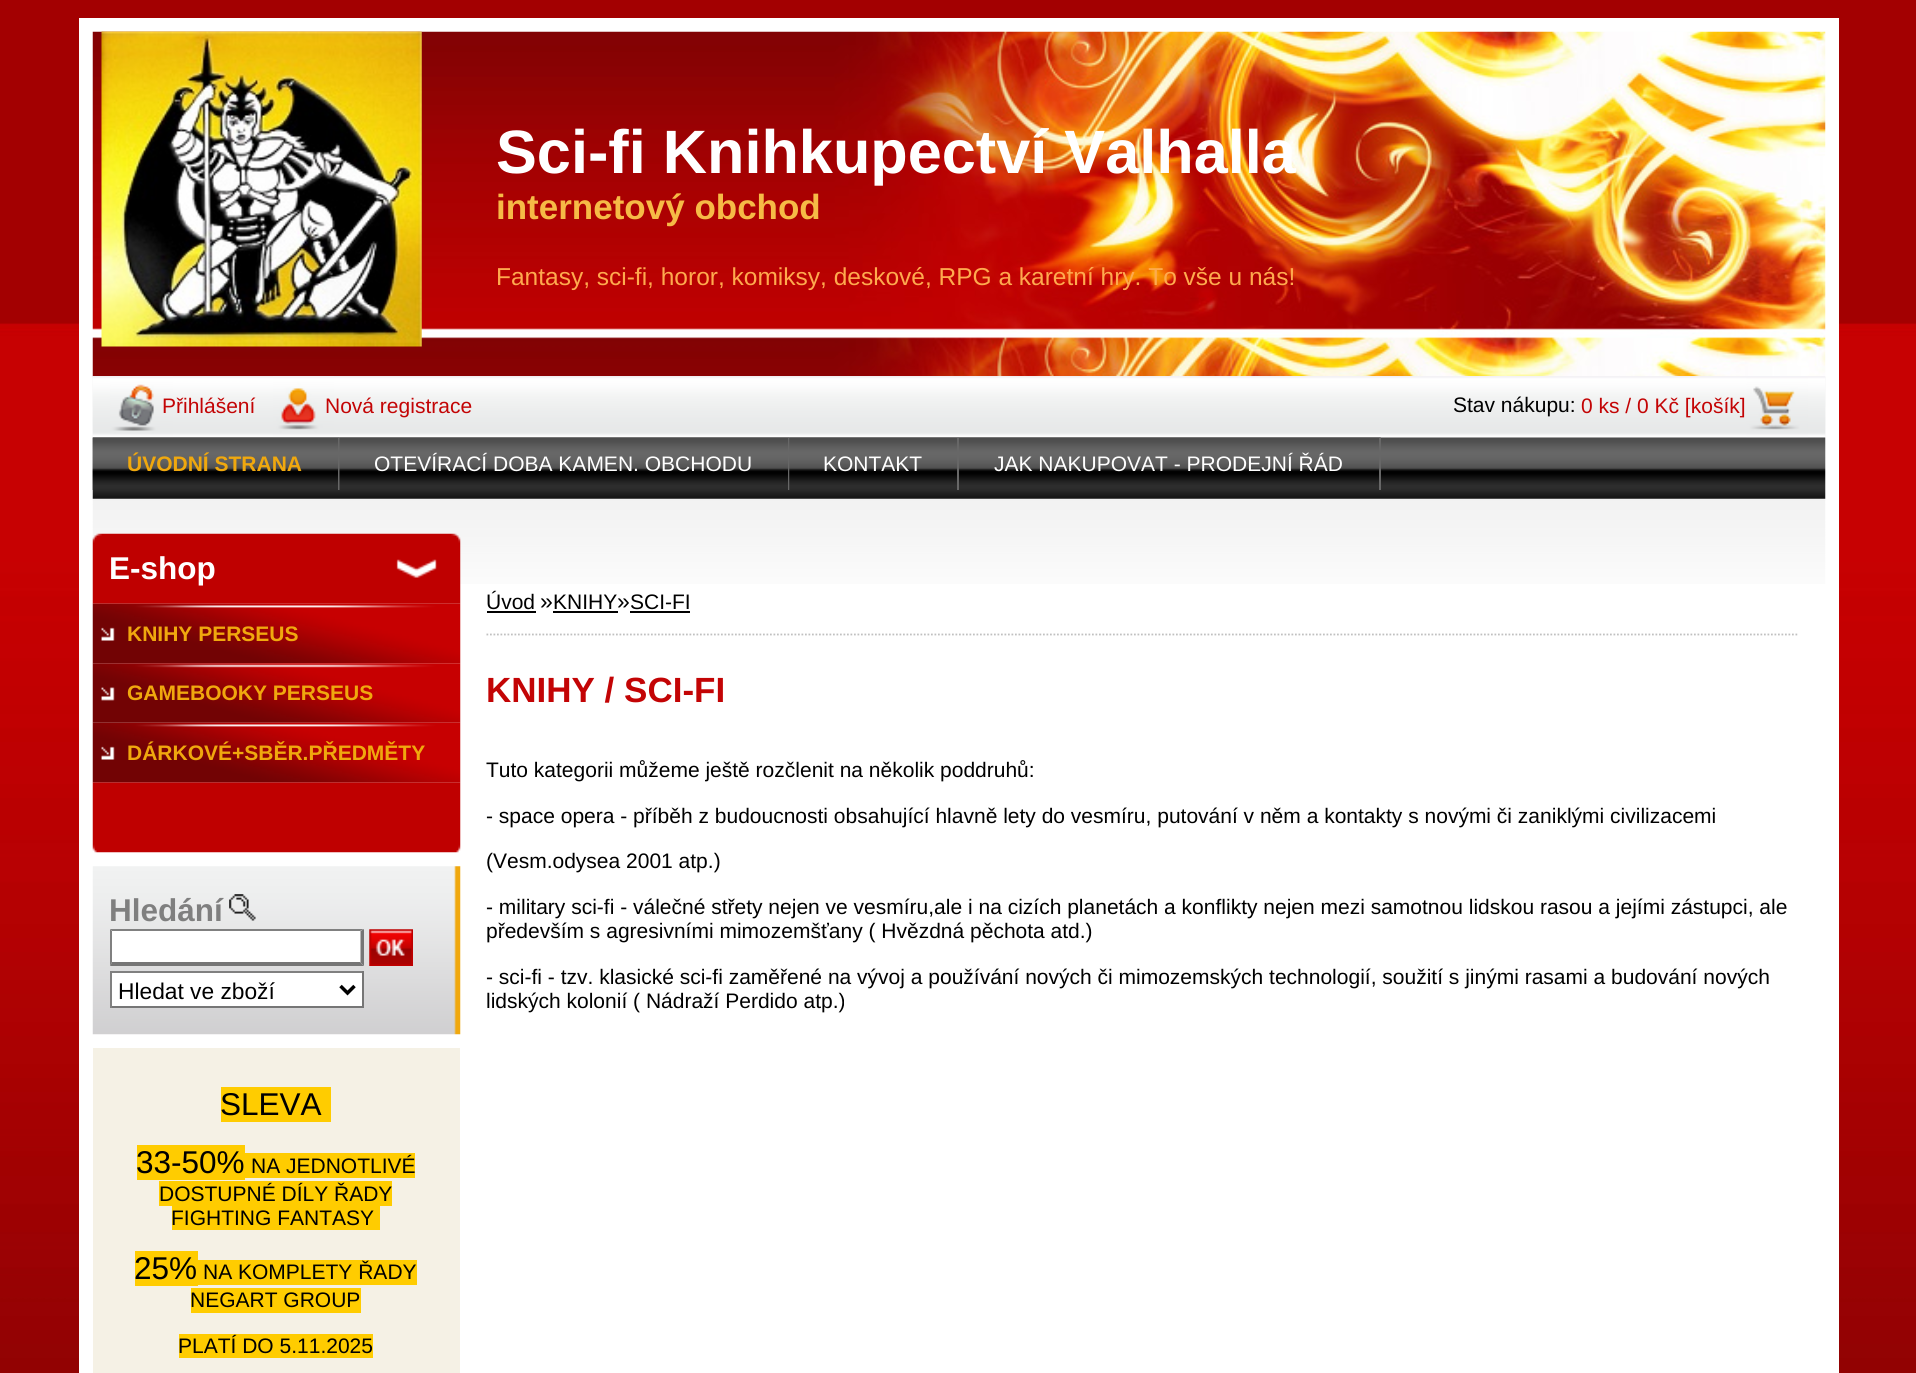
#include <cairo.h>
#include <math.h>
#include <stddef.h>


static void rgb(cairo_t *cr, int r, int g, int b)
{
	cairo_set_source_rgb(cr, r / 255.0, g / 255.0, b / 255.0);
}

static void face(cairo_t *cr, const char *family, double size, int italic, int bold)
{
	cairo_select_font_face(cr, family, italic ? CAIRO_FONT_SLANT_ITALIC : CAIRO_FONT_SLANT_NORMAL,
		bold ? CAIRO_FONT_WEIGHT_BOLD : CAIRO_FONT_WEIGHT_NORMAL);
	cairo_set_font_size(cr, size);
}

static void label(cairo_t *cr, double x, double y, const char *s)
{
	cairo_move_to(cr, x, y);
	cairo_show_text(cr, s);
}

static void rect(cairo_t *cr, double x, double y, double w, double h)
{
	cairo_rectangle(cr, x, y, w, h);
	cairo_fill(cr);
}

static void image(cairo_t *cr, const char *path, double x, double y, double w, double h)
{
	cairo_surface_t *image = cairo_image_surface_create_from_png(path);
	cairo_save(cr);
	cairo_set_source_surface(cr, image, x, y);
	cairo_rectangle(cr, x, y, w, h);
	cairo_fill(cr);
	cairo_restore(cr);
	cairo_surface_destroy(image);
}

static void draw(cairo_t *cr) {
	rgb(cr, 255, 255, 255);
	cairo_paint(cr);
	image(cr, "image0.png", 0, 0, 1916, 1373);
	rgb(cr, 255, 255, 255);
	rect(cr, 79, 18, 1760, 1355);
	image(cr, "image1.png", 92, 31, 1734, 346);
	image(cr, "image2.png", 101, 31, 321, 316);
	face(cr, "Liberation Sans", 61.25, 0, 1);
	label(cr, 496, 173, "Sci-fi Knihkupectví Valhalla");
	face(cr, "Liberation Sans", 35, 0, 1);
	rgb(cr, 246, 186, 70);
	label(cr, 496, 219, "internetový obchod");
	face(cr, "Liberation Sans", 24.5, 0, 0);
	rgb(cr, 254, 170, 78);
	label(cr, 496, 285, "Fantasy, sci-fi, horor, komiksy, deskové, RPG a karetní hry. To vše u nás!");
	image(cr, "image12.png", 92, 376, 1734, 208);
	image(cr, "image3.png", 92, 376, 1734, 62);
	image(cr, "image4.png", 110, 376, 63, 62);
	face(cr, "Liberation Sans", 21, 0, 0);
	rgb(cr, 195, 4, 5);
	label(cr, 162, 413, "Přihlášení");
	image(cr, "image5.png", 273, 376, 61, 62);
	label(cr, 325, 413, "Nová registrace");
	image(cr, "image6.png", 1746, 376, 62, 62);
	rgb(cr, 0, 0, 0);
	label(cr, 1453, 412, "Stav nákupu:");
	rgb(cr, 195, 4, 5);
	label(cr, 1581, 413, "0 ks / 0 Kč [košík]");
	image(cr, "image7.png", 92, 437, 1734, 62);
	image(cr, "image8.png", 92, 437, 248, 53);
	rgb(cr, 103, 103, 103);
	rect(cr, 338, 438, 2, 52);
	face(cr, "Liberation Sans", 21, 0, 1);
	rgb(cr, 240, 168, 14);
	label(cr, 127, 471, "ÚVODNÍ STRANA");
	image(cr, "image9.png", 339, 437, 451, 53);
	rgb(cr, 103, 103, 103);
	rect(cr, 788, 438, 2, 52);
	face(cr, "Liberation Sans", 21, 0, 0);
	rgb(cr, 255, 255, 255);
	label(cr, 374, 471, "OTEVÍRACÍ DOBA KAMEN. OBCHODU");
	image(cr, "image10.png", 789, 437, 170, 53);
	rgb(cr, 103, 103, 103);
	rect(cr, 957, 438, 2, 52);
	rgb(cr, 255, 255, 255);
	label(cr, 823, 471, "KONTAKT");
	image(cr, "image11.png", 959, 437, 422, 1);
	rgb(cr, 103, 103, 103);
	rect(cr, 1379, 438, 2, 52);
	rgb(cr, 255, 255, 255);
	label(cr, 994, 471, "JAK NAKUPOVAT - PRODEJNÍ ŘÁD");
	image(cr, "image13.png", 92, 533, 369, 71);
	face(cr, "Liberation Sans", 31.5, 0, 1);
	label(cr, 109, 579, "E-shop");
	image(cr, "image14.png", 92, 603, 369, 61);
	face(cr, "Liberation Sans", 21, 0, 1);
	rgb(cr, 240, 168, 14);
	label(cr, 127, 641, "KNIHY PERSEUS");
	image(cr, "image15.png", 92, 663, 369, 60);
	label(cr, 127, 700, "GAMEBOOKY PERSEUS");
	image(cr, "image17.png", 92, 782, 369, 71);
	image(cr, "image16.png", 92, 722, 369, 61);
	label(cr, 127, 760, "DÁRKOVÉ+SBĚR.PŘEDMĚTY");
	image(cr, "image18.png", 92, 866, 369, 169);
	face(cr, "Liberation Sans", 31.5, 0, 1);
	rgb(cr, 127, 127, 127);
	label(cr, 109, 921, "Hledání");
	image(cr, "image19.png", 229, 894, 27, 27);
	rgb(cr, 255, 255, 255);
	rect(cr, 110, 929, 254, 37);
	rgb(cr, 128, 128, 128);
	cairo_new_path(cr);
	cairo_move_to(cr, 110, 929);
	cairo_line_to(cr, 364, 929);
	cairo_line_to(cr, 360, 931);
	cairo_line_to(cr, 112, 931);
	cairo_close_path(cr);
	cairo_fill(cr);
	rgb(cr, 118, 118, 118);
	cairo_new_path(cr);
	cairo_move_to(cr, 364, 929);
	cairo_line_to(cr, 364, 966);
	cairo_line_to(cr, 360.5, 962.5);
	cairo_line_to(cr, 360.5, 931);
	cairo_close_path(cr);
	cairo_fill(cr);
	cairo_new_path(cr);
	cairo_move_to(cr, 364, 966);
	cairo_line_to(cr, 110, 966);
	cairo_line_to(cr, 112, 962);
	cairo_line_to(cr, 360, 962);
	cairo_close_path(cr);
	cairo_fill(cr);
	rgb(cr, 128, 128, 128);
	cairo_new_path(cr);
	cairo_move_to(cr, 110, 966);
	cairo_line_to(cr, 110, 929);
	cairo_line_to(cr, 112, 931);
	cairo_line_to(cr, 112, 962.5);
	cairo_close_path(cr);
	cairo_fill(cr);
	image(cr, "image20.png", 369, 929, 44, 37);
	rgb(cr, 255, 255, 255);
	rect(cr, 112, 973, 250, 33);
	rgb(cr, 128, 128, 128);
	rect(cr, 110, 971, 254, 2);
	rgb(cr, 118, 118, 118);
	rect(cr, 362, 971, 2, 37);
	rect(cr, 110, 1006, 254, 2);
	rgb(cr, 128, 128, 128);
	rect(cr, 110, 971, 2, 37);
	cairo_new_path(cr);
	cairo_move_to(cr, 340.5, 986);
	cairo_line_to(cr, 347.5, 993);
	cairo_line_to(cr, 354.5, 986);
	rgb(cr, 0, 0, 0);
	cairo_set_line_width(cr, 3.5);
	cairo_stroke(cr);
	face(cr, "Liberation Sans", 22.75, 0, 0);
	label(cr, 118, 999, "Hledat ve zboží");
	rgb(cr, 245, 241, 229);
	rect(cr, 93, 1048, 367, 325);
	rgb(cr, 255, 204, 0);
	rect(cr, 221, 1087, 110, 35);
	face(cr, "Liberation Sans", 31.5, 0, 0);
	rgb(cr, 0, 0, 0);
	label(cr, 220, 1115, "SLEVA");
	rgb(cr, 255, 204, 0);
	rect(cr, 137, 1145, 108, 35);
	rgb(cr, 0, 0, 0);
	label(cr, 136, 1173, "33-50%");
	rgb(cr, 255, 204, 0);
	rect(cr, 245, 1153, 170, 25);
	face(cr, "Liberation Sans", 21, 0, 0);
	rgb(cr, 0, 0, 0);
	label(cr, 251, 1173, "NA JEDNOTLIVÉ");
	rgb(cr, 255, 204, 0);
	rect(cr, 159, 1181, 233, 25);
	rgb(cr, 0, 0, 0);
	label(cr, 159, 1201, "DOSTUPNÉ DÍLY ŘADY");
	rgb(cr, 255, 204, 0);
	rect(cr, 172, 1206, 208, 24);
	rgb(cr, 0, 0, 0);
	label(cr, 171, 1225, "FIGHTING FANTASY");
	rgb(cr, 255, 204, 0);
	rect(cr, 135, 1251, 63, 35);
	face(cr, "Liberation Sans", 31.5, 0, 0);
	rgb(cr, 0, 0, 0);
	label(cr, 134, 1279, "25%");
	rgb(cr, 255, 204, 0);
	rect(cr, 198, 1260, 219, 25);
	face(cr, "Liberation Sans", 21, 0, 0);
	rgb(cr, 0, 0, 0);
	label(cr, 203, 1279, "NA KOMPLETY ŘADY");
	rgb(cr, 255, 204, 0);
	rect(cr, 191, 1288, 170, 25);
	rgb(cr, 0, 0, 0);
	label(cr, 190, 1307, "NEGART GROUP");
	rgb(cr, 255, 204, 0);
	rect(cr, 179, 1334, 194, 24);
	rgb(cr, 0, 0, 0);
	label(cr, 178, 1353, "PLATÍ DO 5.11.2025");
	cairo_new_path(cr);
	cairo_move_to(cr, 486.5, 634.5);
	cairo_line_to(cr, 1799, 634.5);
	rgb(cr, 192, 192, 192);
	cairo_set_line_width(cr, 1.8);
	cairo_set_dash(cr, (double[]){1.75, 1.75}, 2, 0);
	cairo_stroke(cr);
	rgb(cr, 0, 0, 0);
	label(cr, 486, 609, "Úvod");
	rect(cr, 487, 611, 49, 2);
	face(cr, "Liberation Sans", 23, 0, 0);
	label(cr, 540, 609, "»");
	face(cr, "Liberation Sans", 21, 0, 0);
	label(cr, 553, 609, "KNIHY");
	rect(cr, 553, 611, 65, 2);
	face(cr, "Liberation Sans", 23, 0, 0);
	label(cr, 617, 609, "»");
	face(cr, "Liberation Sans", 21, 0, 0);
	label(cr, 630, 609, "SCI-FI");
	rect(cr, 630, 611, 60, 2);
	face(cr, "Liberation Sans", 35, 0, 1);
	rgb(cr, 195, 4, 5);
	label(cr, 486, 702, "KNIHY / SCI-FI");
	face(cr, "Liberation Sans", 21, 0, 0);
	rgb(cr, 0, 0, 0);
	label(cr, 486, 777, "Tuto kategorii můžeme ještě rozčlenit na několik poddruhů:");
	label(cr, 486, 823, "- space opera - příběh z budoucnosti obsahující hlavně lety do vesmíru, putování v něm a kontakty s novými či zaniklými civilizacemi");
	label(cr, 486, 868, "(Vesm.odysea 2001 atp.)");
	label(cr, 486, 914, "- military sci-fi - válečné střety nejen ve vesmíru,ale i na cizích planetách a konflikty nejen mezi samotnou lidskou rasou a jejími zástupci, ale");
	label(cr, 486, 938, "především s agresivními mimozemšťany ( Hvězdná pěchota atd.)");
	label(cr, 486, 984, "- sci-fi - tzv. klasické sci-fi zaměřené na vývoj a používání nových či mimozemských technologií, soužití s jinými rasami a budování nových");
	label(cr, 486, 1008, "lidských kolonií ( Nádraží Perdido atp.)");
}

int main(void) {
	cairo_surface_t *surface = cairo_image_surface_create(CAIRO_FORMAT_RGB24, 1916, 1373);
	cairo_t *cr = cairo_create(surface);
	cairo_font_options_t *options = cairo_font_options_create();
	cairo_font_options_set_hint_metrics(options, CAIRO_HINT_METRICS_OFF);
	cairo_font_options_set_hint_style(options, CAIRO_HINT_STYLE_NONE);
	cairo_set_font_options(cr, options);
	cairo_set_miter_limit(cr, 4);
	draw(cr);
	cairo_surface_write_to_png(surface, "render.png");
	cairo_font_options_destroy(options);
	cairo_destroy(cr);
	cairo_surface_destroy(surface);
	return 0;
}
